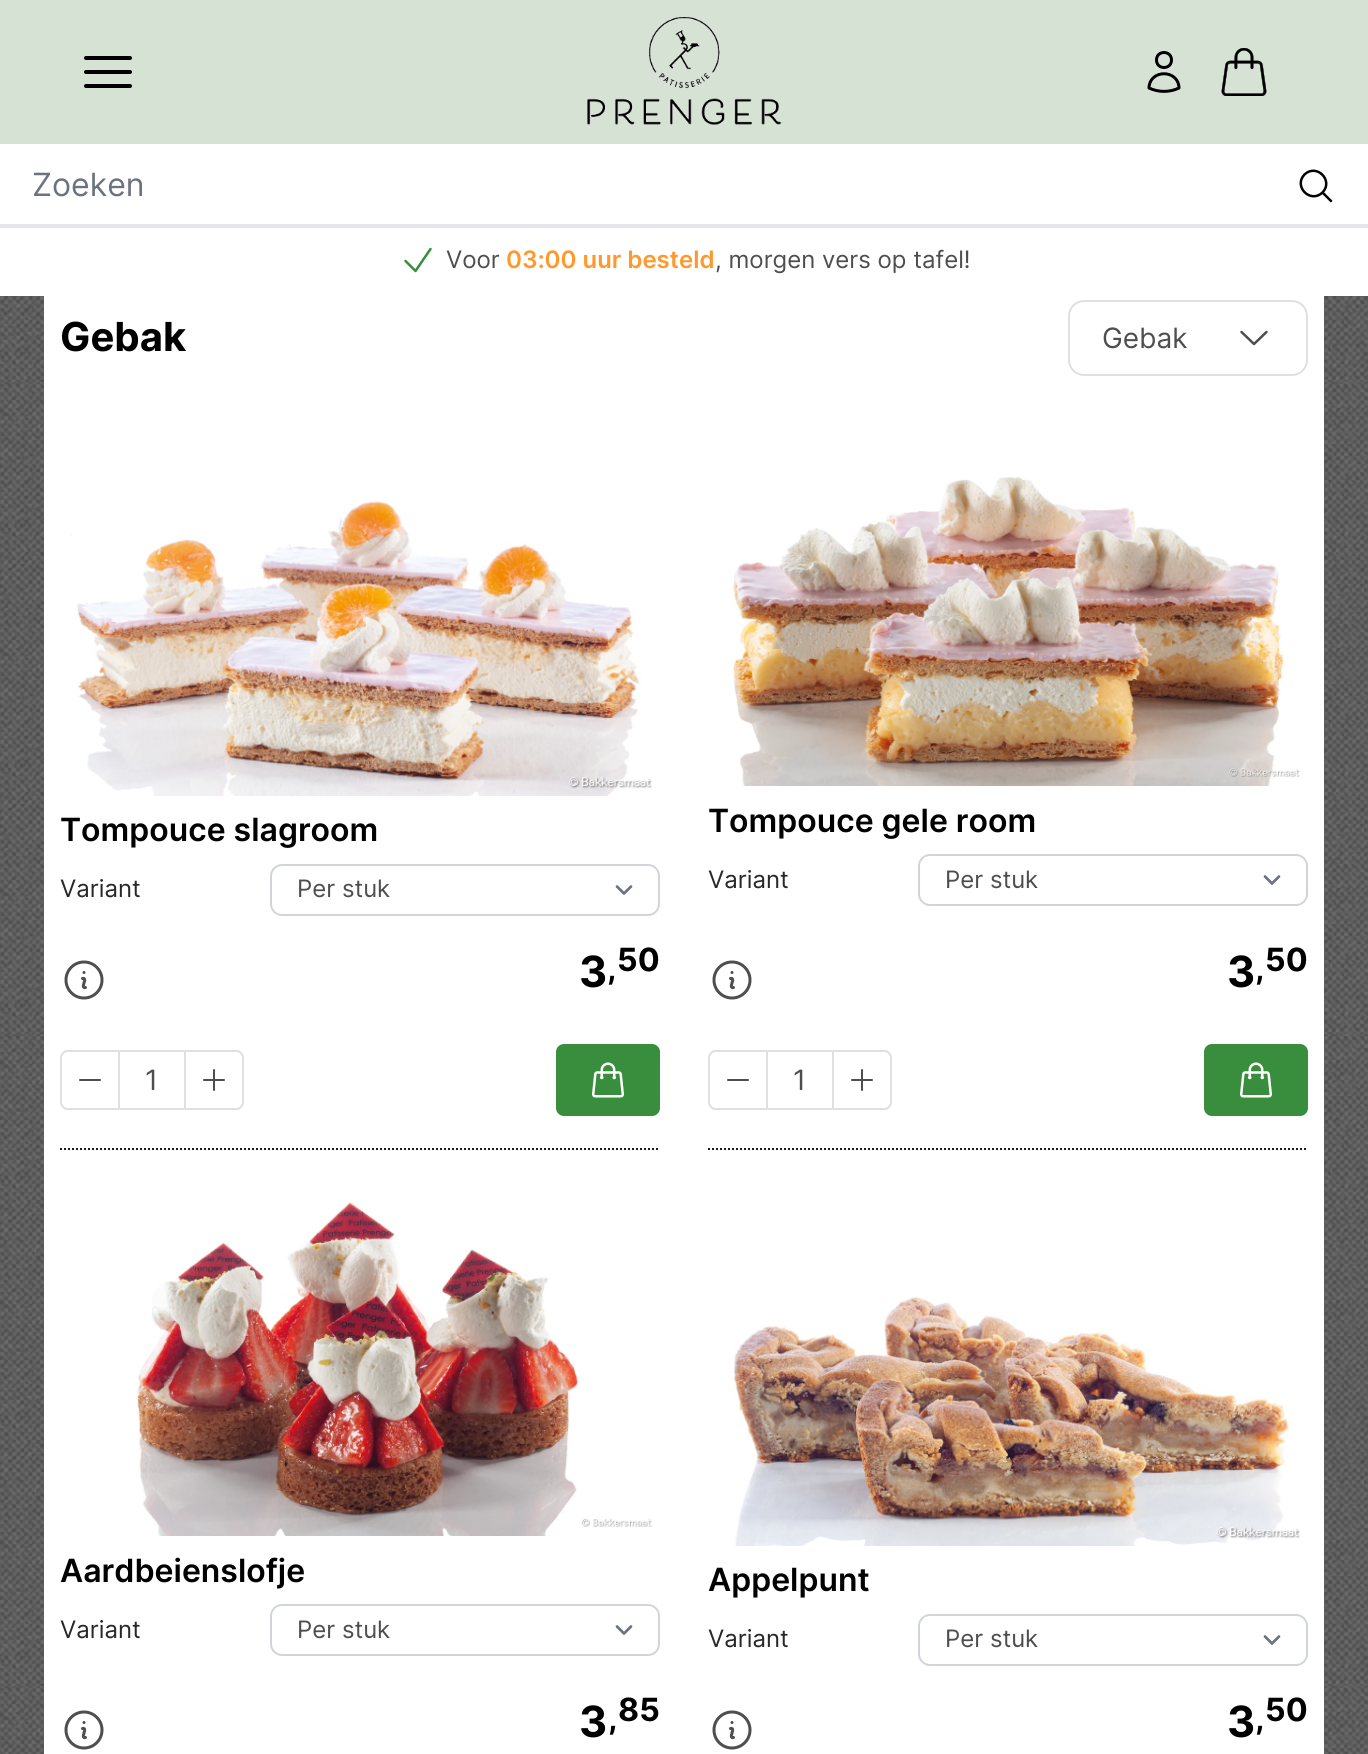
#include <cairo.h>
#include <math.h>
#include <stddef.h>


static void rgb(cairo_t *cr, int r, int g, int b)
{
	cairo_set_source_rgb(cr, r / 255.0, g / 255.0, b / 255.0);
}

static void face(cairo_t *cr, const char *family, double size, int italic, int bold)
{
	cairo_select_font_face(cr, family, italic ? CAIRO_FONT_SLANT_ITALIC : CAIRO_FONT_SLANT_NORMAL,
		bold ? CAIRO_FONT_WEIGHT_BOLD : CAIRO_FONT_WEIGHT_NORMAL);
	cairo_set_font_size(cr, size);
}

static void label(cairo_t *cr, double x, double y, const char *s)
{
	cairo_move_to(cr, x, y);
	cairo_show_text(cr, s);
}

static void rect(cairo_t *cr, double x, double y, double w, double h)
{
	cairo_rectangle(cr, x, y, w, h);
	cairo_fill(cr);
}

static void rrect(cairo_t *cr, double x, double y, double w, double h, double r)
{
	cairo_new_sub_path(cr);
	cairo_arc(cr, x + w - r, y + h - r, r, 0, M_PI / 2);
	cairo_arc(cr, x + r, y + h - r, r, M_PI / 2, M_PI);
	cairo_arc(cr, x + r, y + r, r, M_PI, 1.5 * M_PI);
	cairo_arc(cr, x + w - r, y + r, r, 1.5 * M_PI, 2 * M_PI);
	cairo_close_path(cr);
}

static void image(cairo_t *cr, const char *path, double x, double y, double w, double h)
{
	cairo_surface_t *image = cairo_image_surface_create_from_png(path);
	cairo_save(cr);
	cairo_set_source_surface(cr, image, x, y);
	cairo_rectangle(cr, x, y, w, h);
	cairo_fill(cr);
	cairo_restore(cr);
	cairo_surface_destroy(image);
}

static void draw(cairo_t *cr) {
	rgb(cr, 255, 255, 255);
	cairo_paint(cr);
	image(cr, "image0.png", 0, 296, 1368, 1458);
	rgb(cr, 214, 226, 212);
	rect(cr, 0, 0, 1368, 144);
	cairo_new_path(cr);
	cairo_move_to(cr, 86, 58);
	cairo_line_to(cr, 130, 58);
	cairo_move_to(cr, 86, 72);
	cairo_line_to(cr, 130, 72);
	cairo_move_to(cr, 86, 86);
	cairo_line_to(cr, 130, 86);
	rgb(cr, 0, 0, 0);
	cairo_set_line_width(cr, 4);
	cairo_set_line_cap(cr, CAIRO_LINE_CAP_ROUND);
	cairo_set_line_join(cr, CAIRO_LINE_JOIN_ROUND);
	cairo_stroke(cr);
	image(cr, "image1.png", 587, 17, 195, 108);
	cairo_new_path(cr);
	cairo_move_to(cr, 1171.5, 60);
	cairo_curve_to(cr, 1171.5, 70, 1156.5, 70, 1156.5, 60);
	cairo_curve_to(cr, 1156.5, 50, 1171.5, 50, 1171.5, 60);
	cairo_close_path(cr);
	cairo_move_to(cr, 1149, 88);
	cairo_curve_to(cr, 1149.5, 69, 1178.5, 69, 1179, 88);
	cairo_curve_to(cr, 1169.5, 92.5, 1158.5, 92.5, 1149, 88);
	cairo_close_path(cr);
	cairo_set_line_width(cr, 3);
	cairo_stroke(cr);
	image(cr, "image2.png", 1221, 48, 46, 48);
	rgb(cr, 229, 231, 235);
	rect(cr, 0, 224, 1368, 4);
	face(cr, "Inter", 32, 0, 0);
	rgb(cr, 107, 114, 128);
	label(cr, 32, 196, "Zoeken");
	cairo_new_path(cr);
	cairo_move_to(cr, 1331, 201);
	cairo_line_to(cr, 1322.5, 192.5);
	cairo_move_to(cr, 1322.5, 192.5);
	cairo_curve_to(cr, 1334, 180.5, 1316.5, 163, 1304.5, 174.5);
	cairo_curve_to(cr, 1293, 186.5, 1310.5, 204, 1322.5, 192.5);
	cairo_close_path(cr);
	rgb(cr, 0, 0, 0);
	cairo_set_line_width(cr, 2.5);
	cairo_stroke(cr);
	cairo_new_path(cr);
	cairo_move_to(cr, 405.5, 261);
	cairo_line_to(cr, 415.5, 271);
	cairo_line_to(cr, 430.5, 249);
	rgb(cr, 56, 142, 60);
	cairo_stroke(cr);
	face(cr, "Inter", 24, 0, 0);
	rgb(cr, 78, 78, 78);
	label(cr, 446, 268, "Voor");
	face(cr, "Inter SemiBold", 24, 0, 0);
	rgb(cr, 255, 153, 46);
	label(cr, 506, 268, "03:00 uur besteld");
	face(cr, "Inter", 24, 0, 0);
	rgb(cr, 78, 78, 78);
	label(cr, 715, 268, ", morgen vers op tafel!");
	rgb(cr, 255, 255, 255);
	rect(cr, 44, 296, 1280, 1458);
	face(cr, "Inter", 40, 0, 1);
	rgb(cr, 0, 0, 0);
	label(cr, 60, 351, "Gebak");
	rrect(cr, 1069, 301, 238, 74, 15);
	rgb(cr, 224, 224, 224);
	cairo_set_line_width(cr, 2);
	cairo_set_line_cap(cr, CAIRO_LINE_CAP_BUTT);
	cairo_set_line_join(cr, CAIRO_LINE_JOIN_MITER);
	cairo_stroke(cr);
	face(cr, "Inter", 28, 0, 0);
	rgb(cr, 78, 78, 78);
	label(cr, 1102, 348, "Gebak");
	cairo_new_path(cr);
	cairo_move_to(cr, 1266.5, 332);
	cairo_line_to(cr, 1254, 344);
	cairo_line_to(cr, 1241.5, 332);
	cairo_set_line_width(cr, 2.5);
	cairo_set_line_cap(cr, CAIRO_LINE_CAP_ROUND);
	cairo_set_line_join(cr, CAIRO_LINE_JOIN_ROUND);
	cairo_stroke(cr);
	cairo_new_path(cr);
	cairo_move_to(cr, 60, 1149);
	cairo_line_to(cr, 660, 1149);
	rgb(cr, 26, 26, 24);
	cairo_set_line_width(cr, 2);
	cairo_set_line_cap(cr, CAIRO_LINE_CAP_BUTT);
	cairo_set_line_join(cr, CAIRO_LINE_JOIN_MITER);
	cairo_set_dash(cr, (double[]){2, 2}, 2, 0);
	cairo_stroke(cr);
	image(cr, "image3.png", 71, 501, 581, 295);
	face(cr, "Inter SemiBold", 32, 0, 0);
	rgb(cr, 0, 0, 0);
	label(cr, 60, 841, "Tompouce slagroom");
	face(cr, "Inter", 24, 0, 0);
	rgb(cr, 40, 40, 40);
	label(cr, 60, 897, "Variant");
	cairo_new_path(cr);
	cairo_move_to(cr, 617, 886.5);
	cairo_line_to(cr, 624, 893.5);
	cairo_line_to(cr, 631, 886.5);
	rgb(cr, 107, 114, 128);
	cairo_set_line_width(cr, 2.7);
	cairo_set_line_cap(cr, CAIRO_LINE_CAP_ROUND);
	cairo_set_line_join(cr, CAIRO_LINE_JOIN_ROUND);
	cairo_set_dash(cr, NULL, 0, 0);
	cairo_stroke(cr);
	rrect(cr, 271, 865, 388, 50, 11);
	rgb(cr, 209, 213, 219);
	cairo_set_line_width(cr, 2);
	cairo_set_line_cap(cr, CAIRO_LINE_CAP_BUTT);
	cairo_set_line_join(cr, CAIRO_LINE_JOIN_MITER);
	cairo_stroke(cr);
	rgb(cr, 78, 78, 78);
	label(cr, 297, 897, "Per stuk");
	image(cr, "image4.png", 64, 960, 40, 40);
	face(cr, "Inter", 43, 0, 1);
	rgb(cr, 0, 0, 0);
	label(cr, 579, 987, "3");
	face(cr, "Inter", 32, 0, 1);
	label(cr, 617, 971, "50");
	label(cr, 607, 979, ",");
	cairo_new_path(cr);
	cairo_move_to(cr, 68, 1051);
	cairo_line_to(cr, 119, 1051);
	cairo_line_to(cr, 119, 1109);
	cairo_line_to(cr, 68, 1109);
	cairo_curve_to(cr, 64, 1109, 61, 1106, 61, 1102);
	cairo_line_to(cr, 61, 1058);
	cairo_curve_to(cr, 61, 1054, 64, 1051, 68, 1051);
	cairo_close_path(cr);
	rgb(cr, 224, 224, 224);
	cairo_stroke(cr);
	cairo_new_path(cr);
	cairo_move_to(cr, 100, 1080);
	cairo_line_to(cr, 80, 1080);
	rgb(cr, 78, 78, 78);
	cairo_set_line_cap(cr, CAIRO_LINE_CAP_ROUND);
	cairo_set_line_join(cr, CAIRO_LINE_JOIN_ROUND);
	cairo_stroke(cr);
	rgb(cr, 224, 224, 224);
	rect(cr, 120, 1050, 64, 2);
	rect(cr, 120, 1108, 64, 2);
	face(cr, "Inter", 28, 0, 0);
	rgb(cr, 78, 78, 78);
	label(cr, 145, 1090, "1");
	cairo_new_path(cr);
	cairo_move_to(cr, 185, 1051);
	cairo_line_to(cr, 236, 1051);
	cairo_curve_to(cr, 240, 1051, 243, 1054, 243, 1058);
	cairo_line_to(cr, 243, 1102);
	cairo_curve_to(cr, 243, 1106, 240, 1109, 236, 1109);
	cairo_line_to(cr, 185, 1109);
	cairo_close_path(cr);
	rgb(cr, 224, 224, 224);
	cairo_set_line_cap(cr, CAIRO_LINE_CAP_BUTT);
	cairo_set_line_join(cr, CAIRO_LINE_JOIN_MITER);
	cairo_stroke(cr);
	cairo_new_path(cr);
	cairo_move_to(cr, 214, 1070);
	cairo_line_to(cr, 214, 1090);
	cairo_move_to(cr, 224, 1080);
	cairo_line_to(cr, 204, 1080);
	rgb(cr, 78, 78, 78);
	cairo_set_line_cap(cr, CAIRO_LINE_CAP_ROUND);
	cairo_set_line_join(cr, CAIRO_LINE_JOIN_ROUND);
	cairo_stroke(cr);
	rgb(cr, 56, 142, 60);
	rrect(cr, 556, 1044, 104, 72, 8);
	cairo_fill(cr);
	image(cr, "image5.png", 592, 1062, 32, 36);
	cairo_new_path(cr);
	cairo_move_to(cr, 708, 1149);
	cairo_line_to(cr, 1308, 1149);
	rgb(cr, 26, 26, 24);
	cairo_set_line_cap(cr, CAIRO_LINE_CAP_BUTT);
	cairo_set_line_join(cr, CAIRO_LINE_JOIN_MITER);
	cairo_set_dash(cr, (double[]){2, 2}, 2, 0);
	cairo_stroke(cr);
	image(cr, "image6.png", 733, 477, 567, 309);
	face(cr, "Inter SemiBold", 32, 0, 0);
	rgb(cr, 0, 0, 0);
	label(cr, 708, 832, "Tompouce gele room");
	face(cr, "Inter", 24, 0, 0);
	rgb(cr, 40, 40, 40);
	label(cr, 708, 888, "Variant");
	cairo_new_path(cr);
	cairo_move_to(cr, 1265, 876.5);
	cairo_line_to(cr, 1272, 883.5);
	cairo_line_to(cr, 1279, 876.5);
	rgb(cr, 107, 114, 128);
	cairo_set_line_width(cr, 2.7);
	cairo_set_line_cap(cr, CAIRO_LINE_CAP_ROUND);
	cairo_set_line_join(cr, CAIRO_LINE_JOIN_ROUND);
	cairo_set_dash(cr, NULL, 0, 0);
	cairo_stroke(cr);
	rrect(cr, 919, 855, 388, 50, 11);
	rgb(cr, 209, 213, 219);
	cairo_set_line_width(cr, 2);
	cairo_set_line_cap(cr, CAIRO_LINE_CAP_BUTT);
	cairo_set_line_join(cr, CAIRO_LINE_JOIN_MITER);
	cairo_stroke(cr);
	rgb(cr, 78, 78, 78);
	label(cr, 945, 888, "Per stuk");
	image(cr, "image4.png", 712, 960, 40, 40);
	face(cr, "Inter", 43, 0, 1);
	rgb(cr, 0, 0, 0);
	label(cr, 1227, 987, "3");
	face(cr, "Inter", 32, 0, 1);
	label(cr, 1265, 971, "50");
	label(cr, 1255, 979, ",");
	cairo_new_path(cr);
	cairo_move_to(cr, 716, 1051);
	cairo_line_to(cr, 767, 1051);
	cairo_line_to(cr, 767, 1109);
	cairo_line_to(cr, 716, 1109);
	cairo_curve_to(cr, 712, 1109, 709, 1106, 709, 1102);
	cairo_line_to(cr, 709, 1058);
	cairo_curve_to(cr, 709, 1054, 712, 1051, 716, 1051);
	cairo_close_path(cr);
	rgb(cr, 224, 224, 224);
	cairo_stroke(cr);
	cairo_new_path(cr);
	cairo_move_to(cr, 748, 1080);
	cairo_line_to(cr, 728, 1080);
	rgb(cr, 78, 78, 78);
	cairo_set_line_cap(cr, CAIRO_LINE_CAP_ROUND);
	cairo_set_line_join(cr, CAIRO_LINE_JOIN_ROUND);
	cairo_stroke(cr);
	rgb(cr, 224, 224, 224);
	rect(cr, 768, 1050, 64, 2);
	rect(cr, 768, 1108, 64, 2);
	face(cr, "Inter", 28, 0, 0);
	rgb(cr, 78, 78, 78);
	label(cr, 793, 1090, "1");
	cairo_new_path(cr);
	cairo_move_to(cr, 833, 1051);
	cairo_line_to(cr, 884, 1051);
	cairo_curve_to(cr, 888, 1051, 891, 1054, 891, 1058);
	cairo_line_to(cr, 891, 1102);
	cairo_curve_to(cr, 891, 1106, 888, 1109, 884, 1109);
	cairo_line_to(cr, 833, 1109);
	cairo_close_path(cr);
	rgb(cr, 224, 224, 224);
	cairo_set_line_cap(cr, CAIRO_LINE_CAP_BUTT);
	cairo_set_line_join(cr, CAIRO_LINE_JOIN_MITER);
	cairo_stroke(cr);
	cairo_new_path(cr);
	cairo_move_to(cr, 862, 1070);
	cairo_line_to(cr, 862, 1090);
	cairo_move_to(cr, 872, 1080);
	cairo_line_to(cr, 852, 1080);
	rgb(cr, 78, 78, 78);
	cairo_set_line_cap(cr, CAIRO_LINE_CAP_ROUND);
	cairo_set_line_join(cr, CAIRO_LINE_JOIN_ROUND);
	cairo_stroke(cr);
	rgb(cr, 56, 142, 60);
	rrect(cr, 1204, 1044, 104, 72, 8);
	cairo_fill(cr);
	image(cr, "image5.png", 1240, 1062, 32, 36);
	image(cr, "image7.png", 136, 1202, 516, 334);
	face(cr, "Inter SemiBold", 32, 0, 0);
	rgb(cr, 0, 0, 0);
	label(cr, 60, 1582, "Aardbeienslofje");
	face(cr, "Inter", 24, 0, 0);
	rgb(cr, 40, 40, 40);
	label(cr, 60, 1638, "Variant");
	cairo_new_path(cr);
	cairo_move_to(cr, 617, 1626.5);
	cairo_line_to(cr, 624, 1633.5);
	cairo_line_to(cr, 631, 1626.5);
	rgb(cr, 107, 114, 128);
	cairo_set_line_width(cr, 2.7);
	cairo_stroke(cr);
	rrect(cr, 271, 1605, 388, 50, 11);
	rgb(cr, 209, 213, 219);
	cairo_set_line_width(cr, 2);
	cairo_set_line_cap(cr, CAIRO_LINE_CAP_BUTT);
	cairo_set_line_join(cr, CAIRO_LINE_JOIN_MITER);
	cairo_stroke(cr);
	rgb(cr, 78, 78, 78);
	label(cr, 297, 1638, "Per stuk");
	image(cr, "image4.png", 64, 1710, 40, 40);
	face(cr, "Inter", 43, 0, 1);
	rgb(cr, 0, 0, 0);
	label(cr, 579, 1737, "3");
	face(cr, "Inter", 32, 0, 1);
	label(cr, 618, 1721, "85");
	label(cr, 608, 1729, ",");
	image(cr, "image8.png", 733, 1297, 567, 249);
	face(cr, "Inter SemiBold", 32, 0, 0);
	label(cr, 708, 1591, "Appelpunt");
	face(cr, "Inter", 24, 0, 0);
	rgb(cr, 40, 40, 40);
	label(cr, 708, 1647, "Variant");
	cairo_new_path(cr);
	cairo_move_to(cr, 1265, 1636.5);
	cairo_line_to(cr, 1272, 1643.5);
	cairo_line_to(cr, 1279, 1636.5);
	rgb(cr, 107, 114, 128);
	cairo_set_line_width(cr, 2.7);
	cairo_set_line_cap(cr, CAIRO_LINE_CAP_ROUND);
	cairo_set_line_join(cr, CAIRO_LINE_JOIN_ROUND);
	cairo_stroke(cr);
	rrect(cr, 919, 1615, 388, 50, 11);
	rgb(cr, 209, 213, 219);
	cairo_set_line_width(cr, 2);
	cairo_set_line_cap(cr, CAIRO_LINE_CAP_BUTT);
	cairo_set_line_join(cr, CAIRO_LINE_JOIN_MITER);
	cairo_stroke(cr);
	rgb(cr, 78, 78, 78);
	label(cr, 945, 1647, "Per stuk");
	image(cr, "image4.png", 712, 1710, 40, 40);
	face(cr, "Inter", 43, 0, 1);
	rgb(cr, 0, 0, 0);
	label(cr, 1227, 1737, "3");
	face(cr, "Inter", 32, 0, 1);
	label(cr, 1265, 1721, "50");
	label(cr, 1255, 1729, ",");
}

int main(void) {
	cairo_surface_t *surface = cairo_image_surface_create(CAIRO_FORMAT_RGB24, 1368, 1754);
	cairo_t *cr = cairo_create(surface);
	cairo_font_options_t *options = cairo_font_options_create();
	cairo_font_options_set_hint_metrics(options, CAIRO_HINT_METRICS_OFF);
	cairo_font_options_set_hint_style(options, CAIRO_HINT_STYLE_NONE);
	cairo_set_font_options(cr, options);
	cairo_set_miter_limit(cr, 4);
	draw(cr);
	cairo_surface_write_to_png(surface, "render.png");
	cairo_font_options_destroy(options);
	cairo_destroy(cr);
	cairo_surface_destroy(surface);
	return 0;
}
